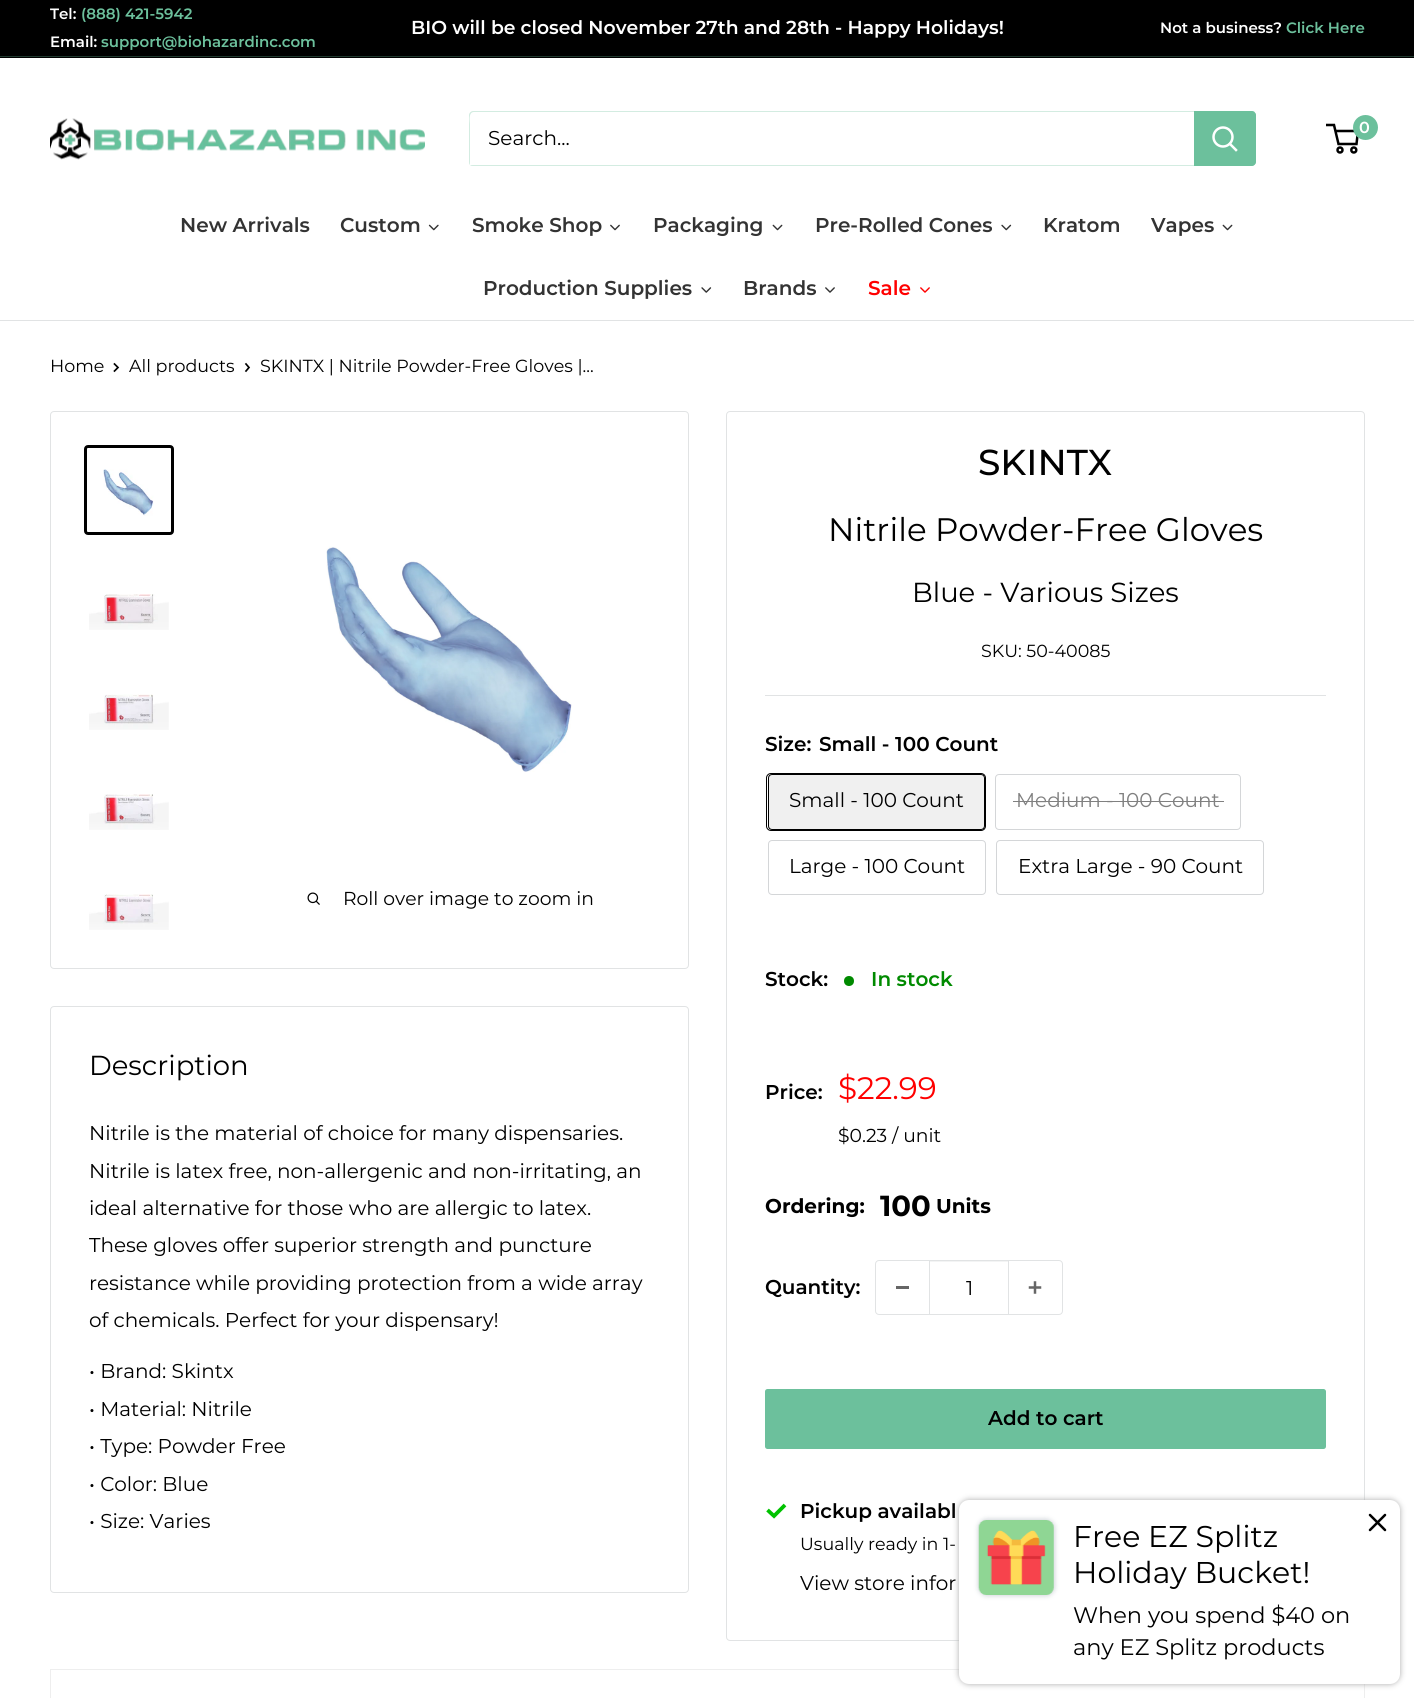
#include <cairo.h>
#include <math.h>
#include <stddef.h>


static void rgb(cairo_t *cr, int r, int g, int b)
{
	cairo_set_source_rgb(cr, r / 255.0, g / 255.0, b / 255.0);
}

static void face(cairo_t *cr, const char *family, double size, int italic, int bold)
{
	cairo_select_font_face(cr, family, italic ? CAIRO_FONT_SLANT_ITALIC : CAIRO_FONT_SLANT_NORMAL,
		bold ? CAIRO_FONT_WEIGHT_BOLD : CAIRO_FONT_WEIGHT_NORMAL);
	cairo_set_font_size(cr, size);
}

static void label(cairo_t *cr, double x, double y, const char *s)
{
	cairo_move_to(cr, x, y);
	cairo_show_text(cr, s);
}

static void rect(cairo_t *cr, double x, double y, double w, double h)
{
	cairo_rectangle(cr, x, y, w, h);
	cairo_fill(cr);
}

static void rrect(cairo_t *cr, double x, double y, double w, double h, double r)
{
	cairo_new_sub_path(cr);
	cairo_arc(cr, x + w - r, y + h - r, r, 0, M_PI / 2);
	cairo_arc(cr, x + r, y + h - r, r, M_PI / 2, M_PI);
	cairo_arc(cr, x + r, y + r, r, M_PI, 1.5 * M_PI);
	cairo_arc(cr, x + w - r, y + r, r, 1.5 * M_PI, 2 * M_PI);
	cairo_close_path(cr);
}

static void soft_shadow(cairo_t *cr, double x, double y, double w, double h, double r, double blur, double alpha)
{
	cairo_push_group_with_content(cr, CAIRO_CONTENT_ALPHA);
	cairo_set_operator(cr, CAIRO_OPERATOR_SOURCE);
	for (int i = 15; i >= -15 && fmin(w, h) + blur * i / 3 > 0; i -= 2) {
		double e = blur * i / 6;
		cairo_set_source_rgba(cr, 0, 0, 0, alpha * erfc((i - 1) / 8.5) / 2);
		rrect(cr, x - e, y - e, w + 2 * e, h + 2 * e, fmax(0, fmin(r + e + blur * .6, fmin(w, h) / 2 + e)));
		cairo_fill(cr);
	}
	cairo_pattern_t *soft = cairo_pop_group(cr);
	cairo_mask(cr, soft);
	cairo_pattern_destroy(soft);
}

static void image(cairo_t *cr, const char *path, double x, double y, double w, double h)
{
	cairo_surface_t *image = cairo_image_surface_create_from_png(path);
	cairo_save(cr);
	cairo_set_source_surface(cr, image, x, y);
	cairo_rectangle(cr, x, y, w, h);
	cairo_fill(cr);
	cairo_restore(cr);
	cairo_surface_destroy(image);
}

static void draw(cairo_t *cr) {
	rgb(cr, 255, 255, 255);
	cairo_paint(cr);
	rgb(cr, 0, 0, 0);
	rect(cr, 0, 0, 1414, 58);
	rgb(cr, 32, 58, 47);
	rect(cr, 0, 56, 1414, 1);
	face(cr, "Montserrat SemiBold", 15, 0, 0);
	rgb(cr, 255, 255, 255);
	label(cr, 50, 19, "Tel:");
	rgb(cr, 108, 192, 156);
	label(cr, 81, 19, "(888) 421-5942");
	rgb(cr, 255, 255, 255);
	label(cr, 50, 47, "Email:");
	rgb(cr, 108, 192, 156);
	label(cr, 101, 47, "support@biohazardinc.com");
	face(cr, "Montserrat SemiBold", 18.75, 0, 0);
	rgb(cr, 255, 255, 255);
	label(cr, 411, 34, "BIO will be closed November 27th and 28th - Happy Holidays!");
	face(cr, "Montserrat SemiBold", 15, 0, 0);
	label(cr, 1160, 33, "Not a business?");
	rgb(cr, 108, 192, 156);
	label(cr, 1286, 33, "Click Here");
	image(cr, "image0.png", 50, 118, 375, 42);
	cairo_arc(cr, 1340, 150, 2.5, 0, 2 * M_PI);
	rgb(cr, 0, 0, 0);
	cairo_set_line_width(cr, 2.5);
	cairo_stroke(cr);
	cairo_arc(cr, 1353.8, 150, 2.5, 0, 2 * M_PI);
	cairo_stroke(cr);
	cairo_new_path(cr);
	cairo_move_to(cr, 1335.5, 131);
	cairo_line_to(cr, 1358, 131);
	cairo_line_to(cr, 1356.5, 144);
	cairo_line_to(cr, 1338.5, 144);
	cairo_line_to(cr, 1334, 125);
	cairo_line_to(cr, 1326, 125);
	cairo_stroke(cr);
	rgb(cr, 108, 192, 156);
	cairo_arc(cr, 1365.5, 127.5, 12.5, 0, 2 * M_PI);
	cairo_fill(cr);
	face(cr, "Montserrat SemiBold", 16, 0, 0);
	rgb(cr, 255, 255, 255);
	label(cr, 1359, 133, "0");
	rgb(cr, 211, 236, 225);
	cairo_new_path(cr);
	cairo_move_to(cr, 470, 165);
	cairo_curve_to(cr, 471, 166, 472, 166, 473, 166);
	cairo_line_to(cr, 1252, 166);
	cairo_curve_to(cr, 1254, 166, 1256, 164, 1256, 162);
	cairo_line_to(cr, 1256, 115);
	cairo_curve_to(cr, 1256, 114, 1255, 112, 1254, 112);
	cairo_line_to(cr, 1255, 114);
	cairo_line_to(cr, 1255, 161);
	cairo_curve_to(cr, 1255, 163, 1253, 165, 1251, 165);
	cairo_close_path(cr);
	cairo_fill(cr);
	cairo_new_path(cr);
	cairo_move_to(cr, 474, 112);
	cairo_line_to(cr, 1255, 112);
	cairo_curve_to(cr, 1254, 111, 1253, 111, 1252, 111);
	cairo_line_to(cr, 473, 111);
	cairo_curve_to(cr, 471, 111, 469, 113, 469, 115);
	cairo_line_to(cr, 469, 162);
	cairo_curve_to(cr, 469, 163, 469, 164, 470, 165);
	cairo_line_to(cr, 470, 124);
	cairo_curve_to(cr, 470, 122, 468, 112, 474, 112);
	cairo_close_path(cr);
	cairo_fill(cr);
	face(cr, "Montserrat", 20, 0, 0);
	rgb(cr, 0, 0, 0);
	label(cr, 488, 145, "Search...");
	rgb(cr, 108, 192, 156);
	cairo_new_path(cr);
	cairo_move_to(cr, 1194, 111);
	cairo_line_to(cr, 1252, 111);
	cairo_curve_to(cr, 1254, 111, 1256, 113, 1256, 115);
	cairo_line_to(cr, 1256, 162);
	cairo_curve_to(cr, 1256, 164, 1254, 166, 1252, 166);
	cairo_line_to(cr, 1194, 166);
	cairo_close_path(cr);
	cairo_fill(cr);
	cairo_new_path(cr);
	cairo_move_to(cr, 1236, 150);
	cairo_line_to(cr, 1230, 144);
	rgb(cr, 255, 255, 255);
	cairo_set_line_cap(cr, CAIRO_LINE_CAP_SQUARE);
	cairo_stroke(cr);
	cairo_arc(cr, 1223, 137, 9.5, 0, 2 * M_PI);
	cairo_set_line_cap(cr, CAIRO_LINE_CAP_BUTT);
	cairo_stroke(cr);
	rgb(cr, 225, 227, 228);
	rect(cr, 0, 320, 1414, 1);
	face(cr, "Montserrat SemiBold", 20, 0, 0);
	rgb(cr, 51, 51, 51);
	label(cr, 180, 232, "New Arrivals");
	label(cr, 340, 232, "Custom");
	image(cr, "image1.png", 428, 224, 11, 7);
	label(cr, 472, 232, "Smoke Shop");
	image(cr, "image2.png", 610, 224, 10, 7);
	label(cr, 653, 232, "Packaging");
	image(cr, "image3.png", 772, 224, 11, 7);
	label(cr, 815, 232, "Pre-Rolled Cones");
	image(cr, "image4.png", 1001, 224, 11, 7);
	label(cr, 1043, 232, "Kratom");
	label(cr, 1151, 232, "Vapes");
	image(cr, "image3.png", 1222, 224, 11, 7);
	label(cr, 483, 295, "Production Supplies");
	image(cr, "image5.png", 701, 287, 11, 6);
	label(cr, 743, 295, "Brands");
	image(cr, "image6.png", 825, 287, 10, 6);
	rgb(cr, 255, 0, 0);
	label(cr, 868, 295, "Sale");
	image(cr, "image7.png", 920, 287, 10, 6);
	face(cr, "Montserrat", 17.5, 0, 0);
	rgb(cr, 0, 0, 0);
	label(cr, 50, 372, "Home");
	cairo_new_path(cr);
	cairo_move_to(cr, 114.5, 364);
	cairo_line_to(cr, 118, 367.5);
	cairo_line_to(cr, 114.5, 371);
	cairo_set_line_width(cr, 1.7);
	cairo_set_line_cap(cr, CAIRO_LINE_CAP_SQUARE);
	cairo_stroke(cr);
	label(cr, 129, 372, "All products");
	cairo_new_path(cr);
	cairo_move_to(cr, 246, 364);
	cairo_line_to(cr, 249, 367.5);
	cairo_line_to(cr, 246, 371);
	cairo_stroke(cr);
	label(cr, 260, 372, "SKINTX | Nitrile Powder-Free Gloves |...");
	rrect(cr, 50.5, 411.5, 638, 557, 3.5);
	rgb(cr, 225, 227, 228);
	cairo_set_line_width(cr, 1);
	cairo_set_line_cap(cr, CAIRO_LINE_CAP_BUTT);
	cairo_stroke(cr);
	rrect(cr, 85.5, 446.5, 87, 87, 2.5);
	rgb(cr, 0, 0, 0);
	cairo_set_line_width(cr, 3);
	cairo_stroke(cr);
	image(cr, "image8.png", 103, 469, 51, 47);
	image(cr, "image9.png", 89, 594, 80, 36);
	image(cr, "image10.png", 89, 694, 80, 36);
	image(cr, "image11.png", 89, 794, 80, 36);
	image(cr, "image12.png", 89, 894, 80, 36);
	image(cr, "image13.png", 326, 546, 246, 226);
	image(cr, "image14.png", 307, 892, 13, 13);
	face(cr, "Montserrat", 18.75, 0, 0);
	label(cr, 343, 905, "Roll over image to zoom in");
	rrect(cr, 726.5, 411.5, 638, 1229, 3.5);
	rgb(cr, 225, 227, 228);
	cairo_set_line_width(cr, 1);
	cairo_stroke(cr);
	face(cr, "Montserrat Medium", 36, 0, 0);
	rgb(cr, 0, 0, 0);
	label(cr, 978, 475, "SKINTX");
	face(cr, "Montserrat", 32.5, 0, 0);
	label(cr, 828, 541, "Nitrile Powder-Free Gloves");
	face(cr, "Montserrat", 27.5, 0, 0);
	label(cr, 912, 602, "Blue - Various Sizes");
	face(cr, "Montserrat", 17.5, 0, 0);
	label(cr, 981, 657, "SKU: 50-40085");
	rgb(cr, 225, 227, 228);
	rect(cr, 765, 695, 561, 1);
	face(cr, "Montserrat SemiBold", 20, 0, 0);
	rgb(cr, 0, 0, 0);
	label(cr, 765, 751, "Size:");
	label(cr, 819, 751, "Small - 100 Count");
	rrect(cr, 766.5, 773.5, 219, 57, 4.5);
	cairo_stroke(cr);
	cairo_set_source_rgba(cr, 0, 0, 0, 0.06);
	rect(cr, 768, 774, 217, 56);
	rrect(cr, 768.5, 774.5, 216, 55, 3.5);
	rgb(cr, 0, 0, 0);
	cairo_stroke(cr);
	face(cr, "Montserrat", 20, 0, 0);
	label(cr, 789, 807, "Small - 100 Count");
	rrect(cr, 995.5, 774.5, 245, 55, 3.5);
	rgb(cr, 212, 214, 216);
	cairo_stroke(cr);
	rgb(cr, 128, 128, 128);
	label(cr, 1016, 807, "Medium - 100 Count");
	rect(cr, 1013, 801, 211, 1);
	rrect(cr, 768.5, 840.5, 217, 54, 3.5);
	rgb(cr, 212, 214, 216);
	cairo_stroke(cr);
	rgb(cr, 0, 0, 0);
	label(cr, 789, 873, "Large - 100 Count");
	rrect(cr, 996.5, 840.5, 267, 54, 3.5);
	rgb(cr, 212, 214, 216);
	cairo_stroke(cr);
	rgb(cr, 0, 0, 0);
	label(cr, 1018, 873, "Extra Large - 90 Count");
	face(cr, "Montserrat SemiBold", 20, 0, 0);
	label(cr, 765, 986, "Stock:");
	rgb(cr, 0, 138, 0);
	cairo_new_path(cr);
	cairo_arc(cr, 849, 981, 5, 0, 2 * M_PI);
	cairo_fill(cr);
	label(cr, 871, 986, "In stock");
	rgb(cr, 0, 0, 0);
	label(cr, 765, 1099, "Price:");
	face(cr, "Montserrat", 31, 0, 0);
	rgb(cr, 255, 0, 0);
	label(cr, 838, 1099, "$22.99");
	face(cr, "Montserrat", 18.75, 0, 0);
	rgb(cr, 0, 0, 0);
	label(cr, 838, 1142, "$0.23 / unit");
	face(cr, "Montserrat", 20, 0, 1);
	label(cr, 765, 1213, "Ordering:");
	face(cr, "Montserrat", 29, 0, 1);
	label(cr, 880, 1216, "100");
	face(cr, "Montserrat", 20, 0, 1);
	label(cr, 936, 1213, "Units");
	face(cr, "Montserrat SemiBold", 20, 0, 0);
	label(cr, 765, 1294, "Quantity:");
	rrect(cr, 875.5, 1260.5, 187, 54, 3.5);
	rgb(cr, 225, 227, 228);
	cairo_stroke(cr);
	rgb(cr, 102, 102, 102);
	rect(cr, 896, 1286, 13, 3);
	rgb(cr, 243, 244, 244);
	rect(cr, 930, 1261, 78, 1);
	rgb(cr, 225, 227, 228);
	rect(cr, 1008, 1261, 1, 53);
	rect(cr, 929, 1261, 1, 53);
	face(cr, "Montserrat", 20, 0, 0);
	rgb(cr, 0, 0, 0);
	label(cr, 966, 1295, "1");
	image(cr, "image15.png", 1028, 1281, 14, 13);
	rgb(cr, 108, 192, 156);
	rrect(cr, 765, 1389, 561, 60, 2.5);
	cairo_fill(cr);
	face(cr, "Montserrat SemiBold", 20, 0, 0);
	rgb(cr, 0, 0, 0);
	label(cr, 988, 1425, "Add to cart");
	cairo_new_path(cr);
	cairo_move_to(cr, 767.5, 1510);
	cairo_line_to(cr, 774, 1516);
	cairo_line_to(cr, 785, 1505);
	rgb(cr, 0, 194, 0);
	cairo_set_line_width(cr, 3.8);
	cairo_stroke(cr);
	rgb(cr, 0, 0, 0);
	label(cr, 800, 1518, "Pickup availabl");
	face(cr, "Montserrat", 17.5, 0, 0);
	label(cr, 800, 1550, "Usually ready in 1-");
	face(cr, "Montserrat", 20, 0, 0);
	label(cr, 800, 1590, "View store infor");
	rrect(cr, 50.5, 1006.5, 638, 586, 3.5);
	rgb(cr, 225, 227, 228);
	cairo_set_line_width(cr, 1);
	cairo_stroke(cr);
	face(cr, "Montserrat", 27.5, 0, 0);
	rgb(cr, 0, 0, 0);
	label(cr, 89, 1075, "Description");
	face(cr, "Montserrat", 20, 0, 0);
	label(cr, 89, 1140, "Nitrile is the material of choice for many dispensaries.");
	label(cr, 89, 1178, "Nitrile is latex free, non-allergenic and non-irritating, an");
	label(cr, 89, 1215, "ideal alternative for those who are allergic to latex.");
	label(cr, 89, 1252, "These gloves offer superior strength and puncture");
	label(cr, 89, 1290, "resistance while providing protection from a wide array");
	label(cr, 89, 1327, "of chemicals. Perfect for your dispensary!");
	label(cr, 89, 1378, "• Brand: Skintx");
	label(cr, 89, 1416, "• Material: Nitrile");
	label(cr, 89, 1453, "• Type: Powder Free");
	label(cr, 89, 1491, "• Color: Blue");
	label(cr, 89, 1528, "• Size: Varies");
	cairo_rectangle(cr, 50.5, 1669.5, 1314, 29);
	rgb(cr, 238, 238, 238);
	cairo_stroke(cr);
	rgb(cr, 170, 170, 170);
	soft_shadow(cr, 959, 1500, 441, 184, 10, 3, 1);
	rgb(cr, 255, 255, 255);
	rrect(cr, 959, 1500, 441, 184, 10);
	cairo_fill(cr);
	rgb(cr, 99, 115, 129);
	soft_shadow(cr, 978, 1519, 77, 77, 9, 2.5, 0.29);
	image(cr, "image16.png", 978, 1520, 76, 75);
	face(cr, "Montserrat", 30, 0, 0);
	rgb(cr, 0, 0, 0);
	label(cr, 1073, 1547, "Free EZ Splitz");
	label(cr, 1073, 1583, "Holiday Bucket!");
	face(cr, "Montserrat", 22.5, 0, 0);
	label(cr, 1073, 1623, "When you spend $40 on");
	label(cr, 1073, 1655, "any EZ Splitz products");
	cairo_new_path(cr);
	cairo_move_to(cr, 1385, 1515);
	cairo_line_to(cr, 1370, 1530);
	cairo_move_to(cr, 1370, 1515);
	cairo_line_to(cr, 1385, 1530);
	cairo_set_line_width(cr, 2.5);
	cairo_set_line_cap(cr, CAIRO_LINE_CAP_ROUND);
	cairo_set_line_join(cr, CAIRO_LINE_JOIN_ROUND);
	cairo_stroke(cr);
}

int main(void) {
	cairo_surface_t *surface = cairo_image_surface_create(CAIRO_FORMAT_RGB24, 1414, 1698);
	cairo_t *cr = cairo_create(surface);
	cairo_font_options_t *options = cairo_font_options_create();
	cairo_font_options_set_hint_metrics(options, CAIRO_HINT_METRICS_OFF);
	cairo_font_options_set_hint_style(options, CAIRO_HINT_STYLE_NONE);
	cairo_set_font_options(cr, options);
	cairo_set_miter_limit(cr, 4);
	draw(cr);
	cairo_surface_write_to_png(surface, "render.png");
	cairo_font_options_destroy(options);
	cairo_destroy(cr);
	cairo_surface_destroy(surface);
	return 0;
}
